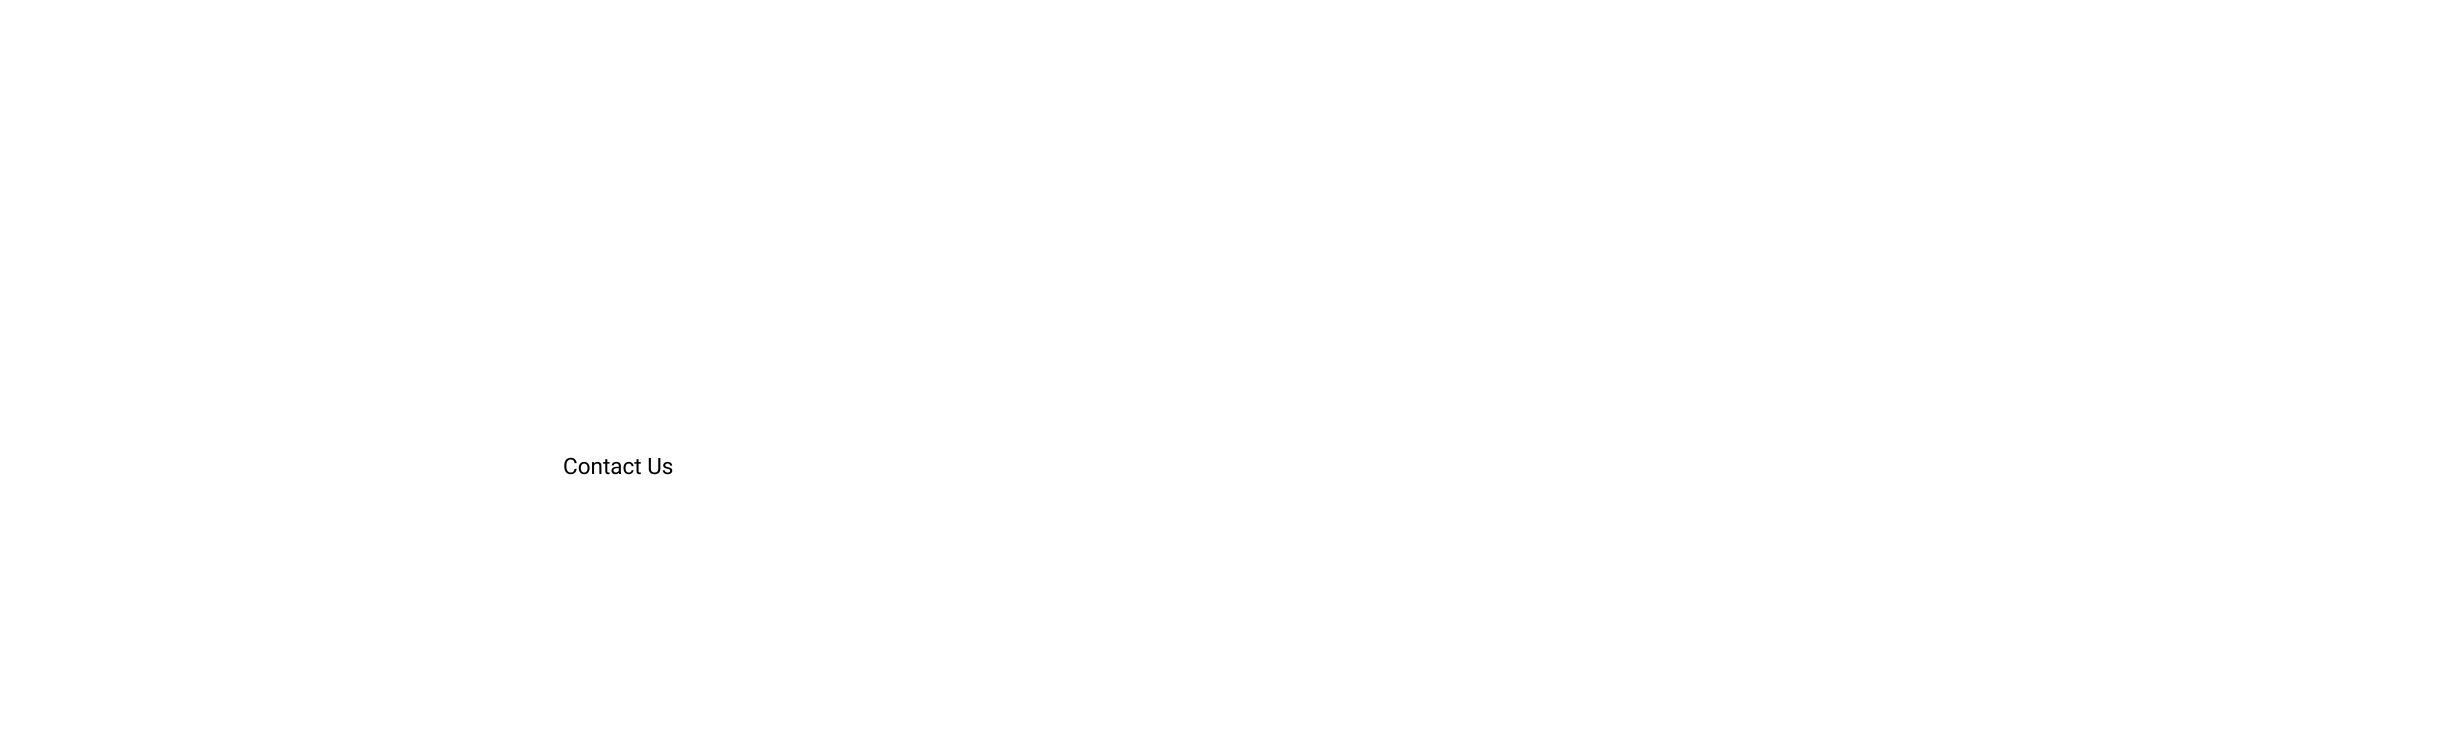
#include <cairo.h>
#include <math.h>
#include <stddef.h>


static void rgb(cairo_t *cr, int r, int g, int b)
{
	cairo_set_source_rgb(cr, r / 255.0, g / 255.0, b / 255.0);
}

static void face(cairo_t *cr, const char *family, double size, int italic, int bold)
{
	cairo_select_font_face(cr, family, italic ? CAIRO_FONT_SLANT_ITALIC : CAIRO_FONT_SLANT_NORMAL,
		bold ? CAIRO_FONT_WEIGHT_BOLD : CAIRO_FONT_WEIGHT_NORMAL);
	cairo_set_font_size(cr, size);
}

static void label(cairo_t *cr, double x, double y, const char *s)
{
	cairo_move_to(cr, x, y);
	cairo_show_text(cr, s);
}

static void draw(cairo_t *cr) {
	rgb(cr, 255, 255, 255);
	cairo_paint(cr);
	face(cr, "Roboto", 22.5, 0, 0);
	rgb(cr, 0, 0, 0);
	label(cr, 563, 474, "Contact Us");
}

int main(void) {
	cairo_surface_t *surface = cairo_image_surface_create(CAIRO_FORMAT_RGB24, 2451, 747);
	cairo_t *cr = cairo_create(surface);
	cairo_font_options_t *options = cairo_font_options_create();
	cairo_font_options_set_hint_metrics(options, CAIRO_HINT_METRICS_OFF);
	cairo_font_options_set_hint_style(options, CAIRO_HINT_STYLE_NONE);
	cairo_set_font_options(cr, options);
	cairo_set_miter_limit(cr, 4);
	draw(cr);
	cairo_surface_write_to_png(surface, "render.png");
	cairo_font_options_destroy(options);
	cairo_destroy(cr);
	cairo_surface_destroy(surface);
	return 0;
}
